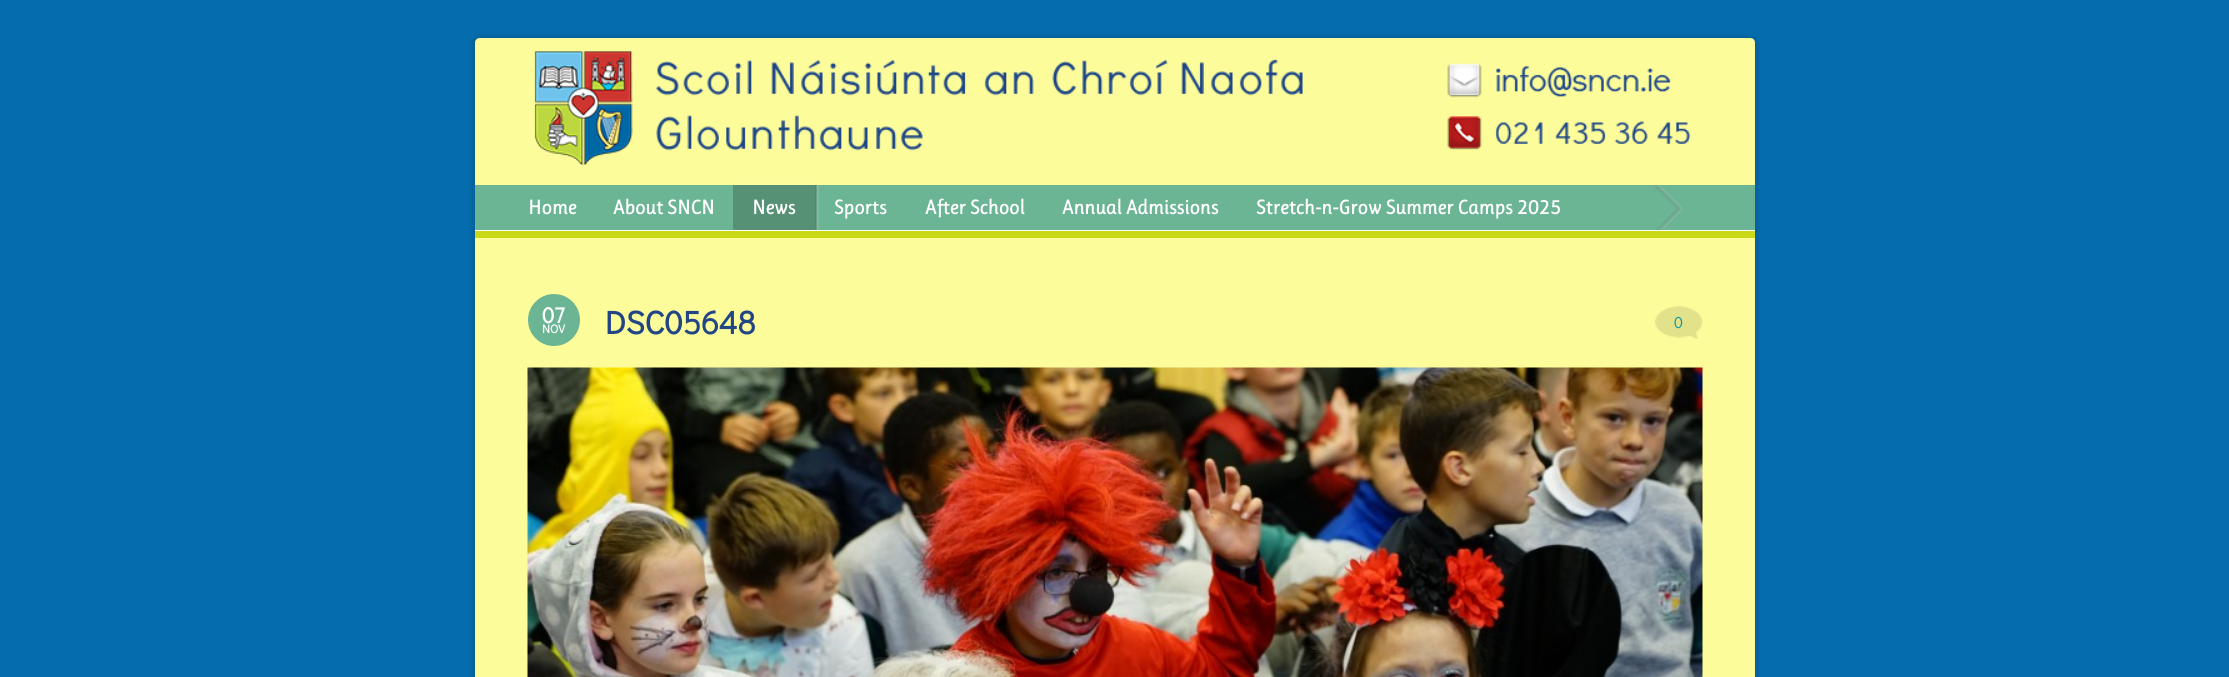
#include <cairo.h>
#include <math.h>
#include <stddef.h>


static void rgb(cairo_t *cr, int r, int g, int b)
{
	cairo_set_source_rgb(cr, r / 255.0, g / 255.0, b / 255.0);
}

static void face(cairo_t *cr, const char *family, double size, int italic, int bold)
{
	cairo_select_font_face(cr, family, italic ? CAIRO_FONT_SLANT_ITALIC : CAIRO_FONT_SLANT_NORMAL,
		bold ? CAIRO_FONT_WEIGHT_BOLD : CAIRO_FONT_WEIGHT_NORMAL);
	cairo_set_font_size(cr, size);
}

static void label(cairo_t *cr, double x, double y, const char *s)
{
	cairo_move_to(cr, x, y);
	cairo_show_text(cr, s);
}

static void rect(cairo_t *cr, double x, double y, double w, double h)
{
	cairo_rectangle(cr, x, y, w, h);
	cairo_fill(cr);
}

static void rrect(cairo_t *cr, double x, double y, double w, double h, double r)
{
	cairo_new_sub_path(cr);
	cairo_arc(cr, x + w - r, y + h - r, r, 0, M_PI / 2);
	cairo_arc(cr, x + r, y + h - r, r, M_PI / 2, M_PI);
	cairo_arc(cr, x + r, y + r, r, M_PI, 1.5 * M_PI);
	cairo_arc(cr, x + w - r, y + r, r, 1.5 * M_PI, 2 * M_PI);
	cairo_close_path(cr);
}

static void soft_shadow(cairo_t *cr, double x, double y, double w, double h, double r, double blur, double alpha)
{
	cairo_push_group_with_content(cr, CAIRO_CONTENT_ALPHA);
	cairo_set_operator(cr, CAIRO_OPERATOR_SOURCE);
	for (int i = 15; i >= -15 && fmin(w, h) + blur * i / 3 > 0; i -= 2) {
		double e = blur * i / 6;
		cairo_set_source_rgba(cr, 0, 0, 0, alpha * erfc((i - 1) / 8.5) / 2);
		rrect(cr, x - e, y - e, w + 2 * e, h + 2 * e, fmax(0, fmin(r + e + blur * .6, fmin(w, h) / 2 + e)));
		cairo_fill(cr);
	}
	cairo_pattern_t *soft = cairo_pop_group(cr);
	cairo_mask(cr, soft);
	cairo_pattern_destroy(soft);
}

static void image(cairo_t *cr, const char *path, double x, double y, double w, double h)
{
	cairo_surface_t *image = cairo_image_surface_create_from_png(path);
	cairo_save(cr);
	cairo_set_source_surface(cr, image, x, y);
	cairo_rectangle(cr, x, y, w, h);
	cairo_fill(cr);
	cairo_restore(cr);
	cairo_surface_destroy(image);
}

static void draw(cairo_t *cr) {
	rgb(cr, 5, 109, 174);
	cairo_paint(cr);
	rgb(cr, 0, 0, 0);
	soft_shadow(cr, 471, 35, 1288, 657, 9, 2, 0.1);
	rgb(cr, 252, 252, 154);
	cairo_new_path(cr);
	cairo_move_to(cr, 480, 38);
	cairo_line_to(cr, 1750, 38);
	cairo_curve_to(cr, 1753, 38, 1755, 40, 1755, 43);
	cairo_line_to(cr, 1755, 231);
	cairo_line_to(cr, 475, 231);
	cairo_line_to(cr, 475, 43);
	cairo_curve_to(cr, 475, 40, 477, 38, 480, 38);
	cairo_close_path(cr);
	cairo_fill(cr);
	image(cr, "image0.png", 534, 51, 1157, 114);
	rgb(cr, 107, 181, 148);
	rect(cr, 475, 185, 1280, 45);
	rgb(cr, 255, 255, 255);
	rect(cr, 475, 230, 1280, 1);
	face(cr, "Ruluko", 20, 0, 1);
	label(cr, 528, 214, "Home");
	label(cr, 613, 214, "About SNCN");
	rgb(cr, 201, 217, 23);
	rect(cr, 475, 231, 1280, 7);
	cairo_save(cr);
	cairo_set_fill_rule(cr, CAIRO_FILL_RULE_EVEN_ODD);
	cairo_new_path(cr);
	cairo_move_to(cr, 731, 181);
	cairo_line_to(cr, 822, 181);
	cairo_line_to(cr, 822, 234);
	cairo_line_to(cr, 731, 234);
	cairo_close_path(cr);
	cairo_move_to(cr, 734, 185);
	cairo_line_to(cr, 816, 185);
	cairo_line_to(cr, 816, 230);
	cairo_line_to(cr, 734, 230);
	cairo_close_path(cr);
	cairo_clip(cr);
	rgb(cr, 255, 255, 255);
	soft_shadow(cr, 735, 185, 83, 45, 0, 1, 0.2);
	cairo_restore(cr);
	cairo_set_source_rgba(cr, 0, 0, 0, 0.2);
	rect(cr, 733, 185, 84, 45);
	rgb(cr, 71, 141, 110);
	rect(cr, 815, 185, 1, 45);
	rgb(cr, 255, 255, 255);
	label(cr, 752, 214, "News");
	label(cr, 834, 214, "Sports");
	label(cr, 925, 214, "After School");
	label(cr, 1062, 214, "Annual Admissions");
	label(cr, 1256, 214, "Stretch-n-Grow Summer Camps 2025");
	image(cr, "image1.png", 1655, 186, 28, 44);
	rgb(cr, 252, 252, 154);
	rect(cr, 475, 238, 1280, 439);
	rgb(cr, 107, 181, 148);
	cairo_arc(cr, 554, 320, 26, 0, 2 * M_PI);
	cairo_fill(cr);
	face(cr, "Didact Gothic", 22, 0, 1);
	rgb(cr, 255, 255, 255);
	label(cr, 542, 323, "07");
	face(cr, "Didact Gothic", 12, 0, 1);
	label(cr, 542, 333, "NOV");
	face(cr, "Didact Gothic", 32.5, 0, 1);
	rgb(cr, 34, 69, 133);
	label(cr, 605, 334, "DSC05648");
	image(cr, "image2.png", 1655, 306, 48, 33);
	face(cr, "Didact Gothic", 16, 0, 0);
	rgb(cr, 6, 149, 166);
	label(cr, 1674, 328, "0");
	image(cr, "image3.png", 527, 367, 1176, 310);
}

int main(void) {
	cairo_surface_t *surface = cairo_image_surface_create(CAIRO_FORMAT_RGB24, 2229, 677);
	cairo_t *cr = cairo_create(surface);
	cairo_font_options_t *options = cairo_font_options_create();
	cairo_font_options_set_hint_metrics(options, CAIRO_HINT_METRICS_OFF);
	cairo_font_options_set_hint_style(options, CAIRO_HINT_STYLE_NONE);
	cairo_set_font_options(cr, options);
	cairo_set_miter_limit(cr, 4);
	draw(cr);
	cairo_surface_write_to_png(surface, "render.png");
	cairo_font_options_destroy(options);
	cairo_destroy(cr);
	cairo_surface_destroy(surface);
	return 0;
}
